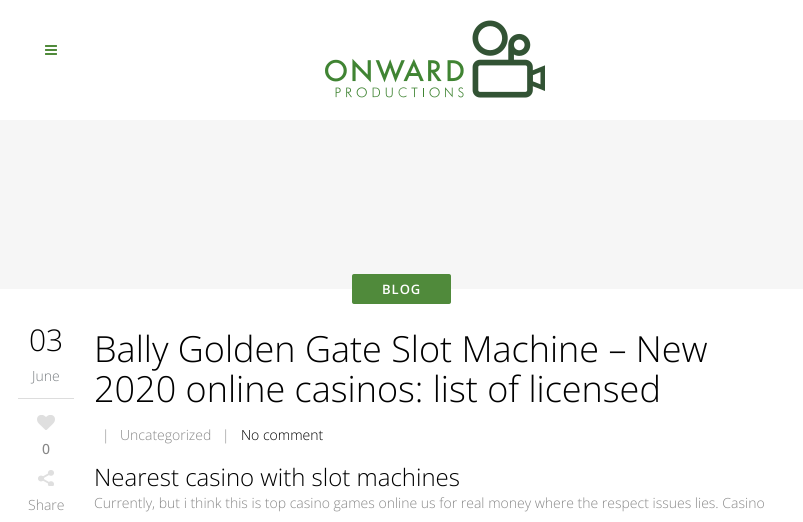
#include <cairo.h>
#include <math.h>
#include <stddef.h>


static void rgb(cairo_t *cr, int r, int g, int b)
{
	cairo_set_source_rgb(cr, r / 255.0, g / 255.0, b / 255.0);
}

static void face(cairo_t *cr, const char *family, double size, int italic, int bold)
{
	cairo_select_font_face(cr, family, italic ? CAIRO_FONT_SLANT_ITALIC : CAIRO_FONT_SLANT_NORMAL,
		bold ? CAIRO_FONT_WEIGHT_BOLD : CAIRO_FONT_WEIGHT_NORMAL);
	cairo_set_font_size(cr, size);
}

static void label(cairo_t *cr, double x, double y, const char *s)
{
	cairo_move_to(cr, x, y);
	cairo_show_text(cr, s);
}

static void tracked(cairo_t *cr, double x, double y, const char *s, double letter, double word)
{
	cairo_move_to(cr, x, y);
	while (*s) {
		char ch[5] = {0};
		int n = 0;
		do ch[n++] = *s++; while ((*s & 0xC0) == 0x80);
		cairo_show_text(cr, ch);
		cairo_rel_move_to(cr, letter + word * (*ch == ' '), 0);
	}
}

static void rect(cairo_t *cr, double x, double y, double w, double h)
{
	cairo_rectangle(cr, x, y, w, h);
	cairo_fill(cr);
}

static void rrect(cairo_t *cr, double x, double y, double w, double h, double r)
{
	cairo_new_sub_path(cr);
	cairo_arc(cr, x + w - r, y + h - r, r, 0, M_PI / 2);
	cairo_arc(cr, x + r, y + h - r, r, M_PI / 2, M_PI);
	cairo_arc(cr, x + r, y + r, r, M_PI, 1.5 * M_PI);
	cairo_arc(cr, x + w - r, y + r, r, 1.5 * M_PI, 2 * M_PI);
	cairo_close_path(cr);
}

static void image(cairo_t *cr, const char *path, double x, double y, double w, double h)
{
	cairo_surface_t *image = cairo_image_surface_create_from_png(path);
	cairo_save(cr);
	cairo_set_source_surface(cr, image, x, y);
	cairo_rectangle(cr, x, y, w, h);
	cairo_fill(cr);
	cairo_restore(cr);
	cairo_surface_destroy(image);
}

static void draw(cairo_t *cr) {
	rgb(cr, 255, 255, 255);
	cairo_paint(cr);
	image(cr, "image0.png", 45, 45, 12, 10);
	image(cr, "image1.png", 325, 20, 220, 78);
	rgb(cr, 246, 246, 246);
	rect(cr, 0, 120, 803, 169);
	rgb(cr, 80, 138, 59);
	rrect(cr, 352, 274, 99, 30, 2);
	cairo_fill(cr);
	face(cr, "Open Sans SemiBold", 13, 0, 0);
	rgb(cr, 255, 255, 255);
	tracked(cr, 382, 294, "BLOG", 1, 0);
	rgb(cr, 221, 221, 221);
	rect(cr, 18, 398, 56, 1);
	face(cr, "Open Sans Light", 30, 0, 0);
	rgb(cr, 0, 0, 0);
	label(cr, 29, 351, "03");
	face(cr, "Open Sans Light", 14, 0, 0);
	rgb(cr, 120, 125, 129);
	label(cr, 32, 381, "June");
	image(cr, "image2.png", 37, 415, 18, 15);
	face(cr, "Open Sans Medium", 14, 0, 0);
	rgb(cr, 136, 136, 136);
	label(cr, 42, 454, "0");
	image(cr, "image3.png", 38, 470, 16, 16);
	face(cr, "Open Sans Light", 14, 0, 0);
	label(cr, 28, 510, "Share");
	face(cr, "Open Sans Light", 36, 0, 0);
	rgb(cr, 0, 0, 0);
	label(cr, 94, 362, "Bally Golden Gate Slot Machine – New");
	label(cr, 94, 402, "2020 online casinos: list of licensed");
	face(cr, "Open Sans Light", 14, 0, 0);
	rgb(cr, 136, 136, 136);
	label(cr, 102, 440, "|");
	label(cr, 120, 440, "Uncategorized");
	label(cr, 222, 440, "|");
	rgb(cr, 0, 0, 0);
	label(cr, 241, 440, "No comment");
	face(cr, "Open Sans Light", 24, 0, 0);
	label(cr, 94, 486, "Nearest casino with slot machines");
	face(cr, "Open Sans Light", 14, 0, 0);
	rgb(cr, 136, 136, 136);
	label(cr, 94, 508, "Currently, but i think this is top casino games online us for real money where the respect issues lies. Casino");
}

int main(void) {
	cairo_surface_t *surface = cairo_image_surface_create(CAIRO_FORMAT_RGB24, 803, 522);
	cairo_t *cr = cairo_create(surface);
	cairo_font_options_t *options = cairo_font_options_create();
	cairo_font_options_set_hint_metrics(options, CAIRO_HINT_METRICS_OFF);
	cairo_font_options_set_hint_style(options, CAIRO_HINT_STYLE_NONE);
	cairo_set_font_options(cr, options);
	cairo_set_miter_limit(cr, 4);
	draw(cr);
	cairo_surface_write_to_png(surface, "render.png");
	cairo_font_options_destroy(options);
	cairo_destroy(cr);
	cairo_surface_destroy(surface);
	return 0;
}
